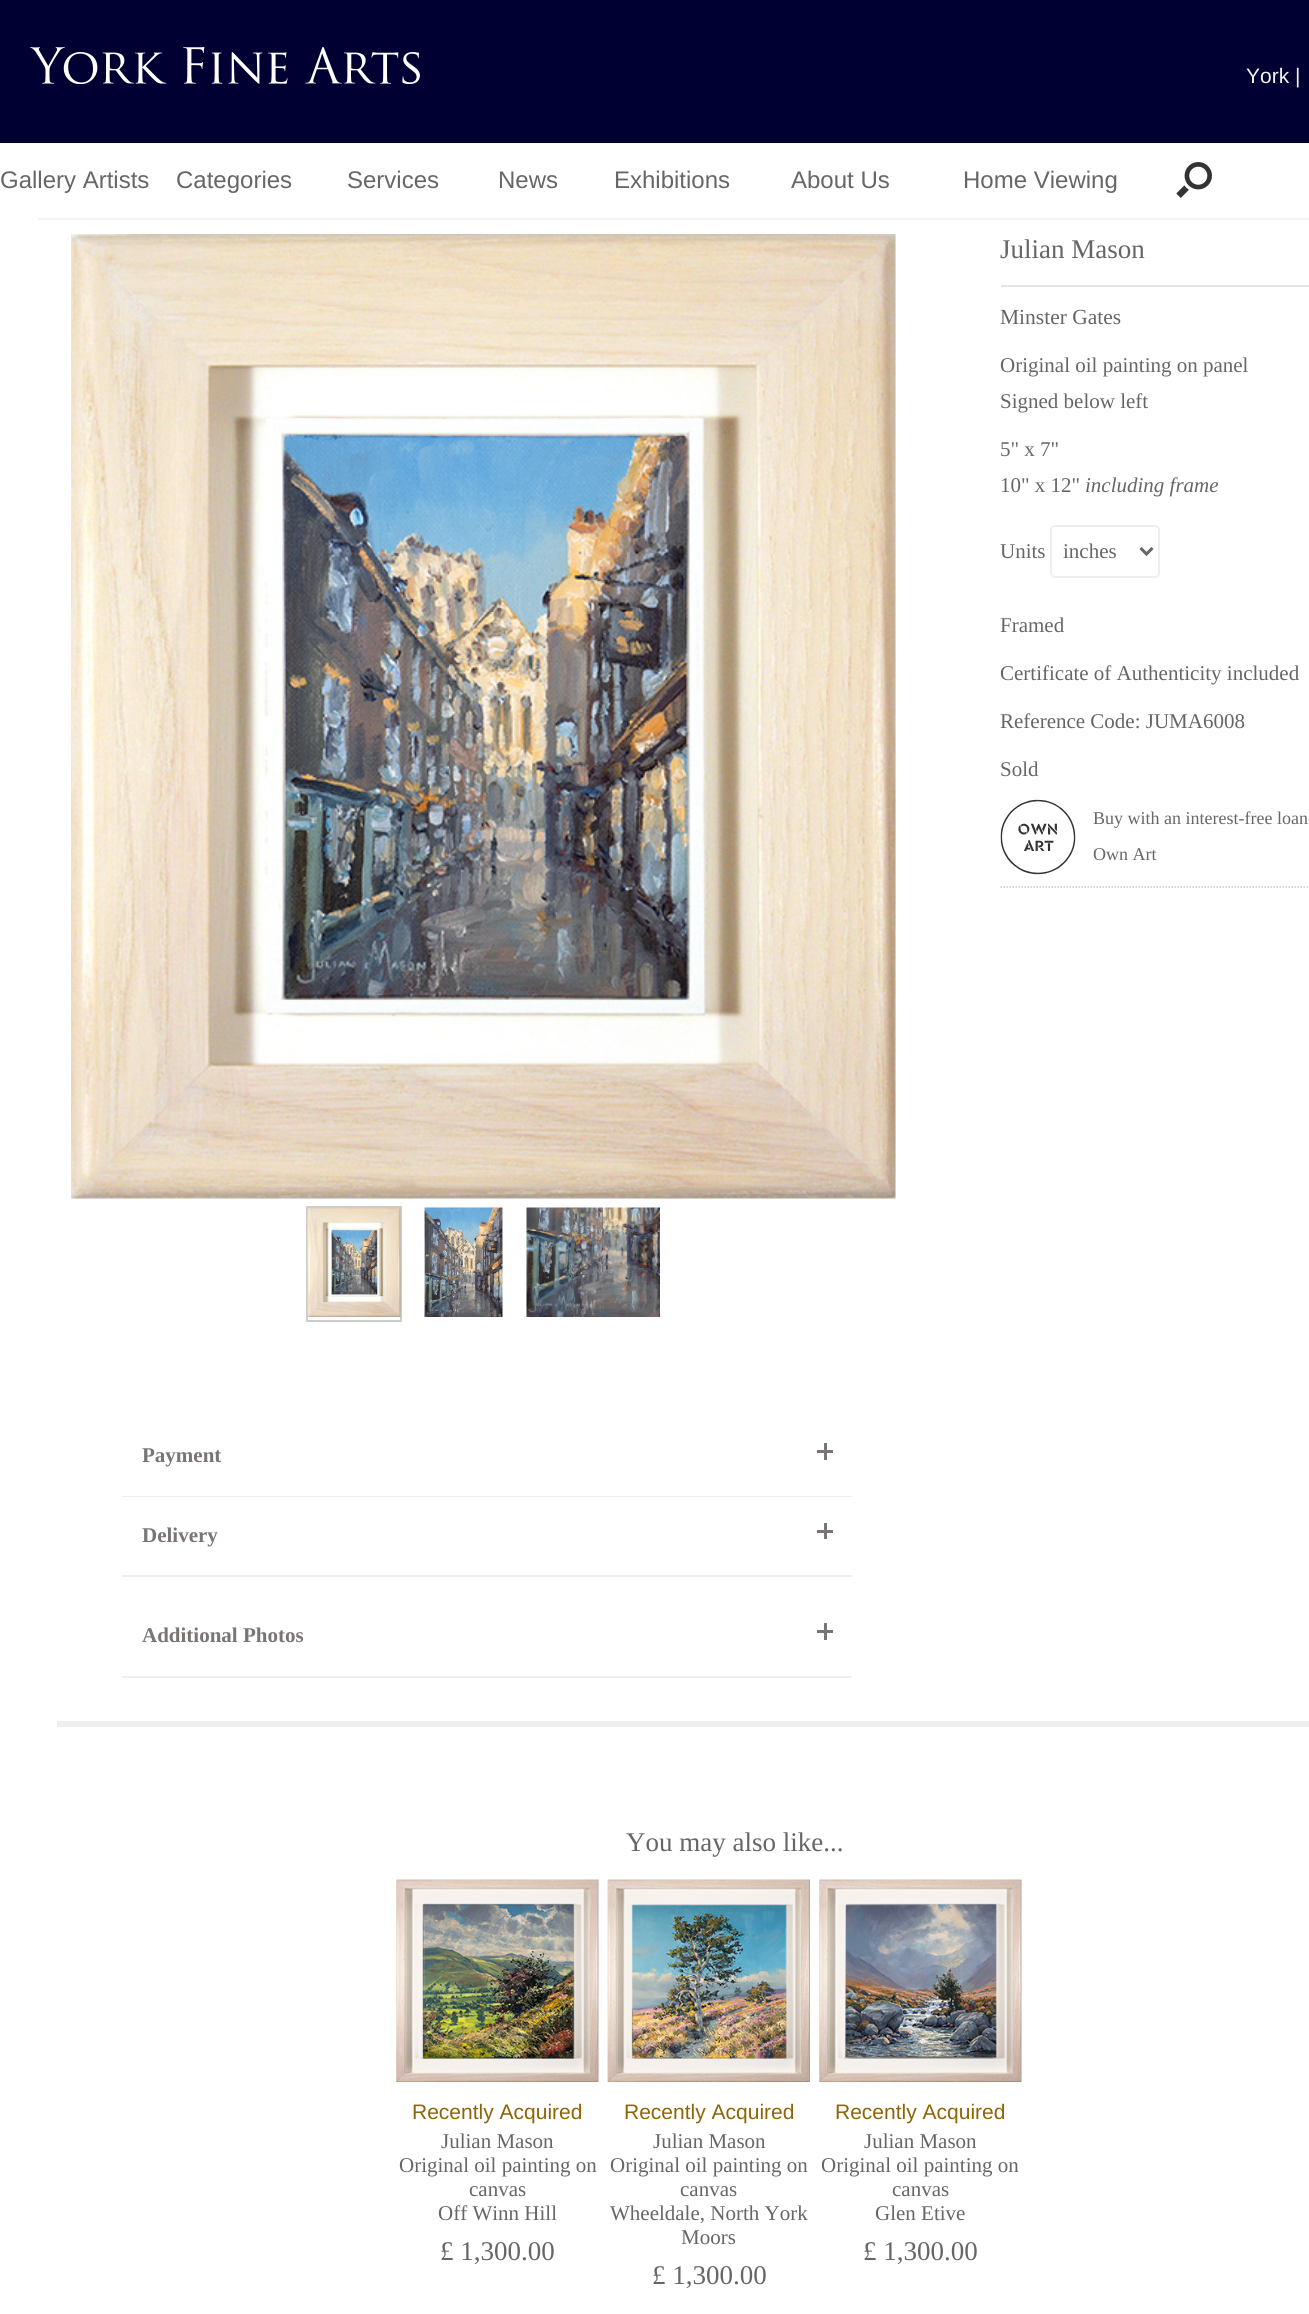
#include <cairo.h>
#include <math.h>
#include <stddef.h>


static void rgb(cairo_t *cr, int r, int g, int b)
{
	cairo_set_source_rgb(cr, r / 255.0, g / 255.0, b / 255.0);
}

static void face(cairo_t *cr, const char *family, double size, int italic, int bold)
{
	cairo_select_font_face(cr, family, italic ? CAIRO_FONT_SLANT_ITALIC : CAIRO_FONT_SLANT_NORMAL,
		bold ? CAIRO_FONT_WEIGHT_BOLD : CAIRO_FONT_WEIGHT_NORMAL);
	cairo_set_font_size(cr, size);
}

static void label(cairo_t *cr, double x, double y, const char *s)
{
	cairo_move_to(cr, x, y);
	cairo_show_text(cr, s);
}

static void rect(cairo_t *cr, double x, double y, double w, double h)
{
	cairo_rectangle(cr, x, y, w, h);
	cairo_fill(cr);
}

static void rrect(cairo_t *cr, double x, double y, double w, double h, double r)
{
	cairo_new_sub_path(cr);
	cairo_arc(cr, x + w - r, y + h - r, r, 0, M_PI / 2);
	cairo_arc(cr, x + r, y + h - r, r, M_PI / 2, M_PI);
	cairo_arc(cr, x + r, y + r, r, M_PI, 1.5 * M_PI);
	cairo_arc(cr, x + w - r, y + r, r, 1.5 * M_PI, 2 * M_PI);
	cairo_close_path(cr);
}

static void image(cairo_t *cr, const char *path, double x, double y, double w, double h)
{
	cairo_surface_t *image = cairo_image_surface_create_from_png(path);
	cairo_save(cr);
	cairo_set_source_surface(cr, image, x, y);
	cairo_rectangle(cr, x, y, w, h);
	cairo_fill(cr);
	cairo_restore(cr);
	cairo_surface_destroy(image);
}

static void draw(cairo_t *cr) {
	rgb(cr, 255, 255, 255);
	cairo_paint(cr);
	rgb(cr, 0, 0, 51);
	rect(cr, 0, 0, 1309, 143);
	image(cr, "image0.png", 30, 47, 390, 37);
	face(cr, "Liberation Sans", 21, 0, 0);
	rgb(cr, 244, 244, 244);
	label(cr, 1246, 83, "York |");
	face(cr, "Liberation Sans", 24, 0, 0);
	rgb(cr, 102, 102, 102);
	label(cr, 0, 188, "Gallery Artists");
	label(cr, 176, 188, "Categories");
	label(cr, 347, 188, "Services");
	label(cr, 498, 188, "News");
	label(cr, 614, 188, "Exhibitions");
	label(cr, 791, 188, "About Us");
	label(cr, 963, 188, "Home Viewing");
	image(cr, "image1.png", 1176, 162, 36, 36);
	rgb(cr, 244, 244, 244);
	rect(cr, 38, 218, 1271, 2);
	image(cr, "image2.png", 71, 234, 825, 965);
	cairo_rectangle(cr, 307, 1207, 94, 114);
	rgb(cr, 204, 204, 204);
	cairo_stroke(cr);
	image(cr, "image3.png", 307, 1207, 94, 110);
	image(cr, "image4.png", 424, 1207, 79, 110);
	image(cr, "image5.png", 526, 1207, 134, 110);
	face(cr, "Liberation Serif", 27, 0, 0);
	rgb(cr, 102, 102, 102);
	label(cr, 1000, 258, "Julian Mason");
	rgb(cr, 229, 229, 229);
	rect(cr, 1001, 285, 308, 2);
	face(cr, "Liberation Serif", 21.5, 0, 0);
	rgb(cr, 102, 102, 102);
	label(cr, 1000, 324, "Minster Gates");
	face(cr, "Liberation Serif", 21, 0, 0);
	label(cr, 1000, 372, "Original oil painting on panel");
	label(cr, 1000, 408, "Signed below left");
	label(cr, 1000, 456, "5\" x 7\"");
	label(cr, 1000, 492, "10\" x 12\"");
	face(cr, "Liberation Serif", 21, 1, 0);
	label(cr, 1085, 492, "including frame");
	face(cr, "Liberation Serif", 21, 0, 0);
	label(cr, 1000, 558, "Units");
	rrect(cr, 1051, 526, 108, 51, 4);
	rgb(cr, 238, 238, 238);
	cairo_stroke(cr);
	cairo_new_path(cr);
	cairo_move_to(cr, 1140.5, 548);
	cairo_line_to(cr, 1146.5, 554);
	cairo_line_to(cr, 1152.5, 548);
	rgb(cr, 102, 102, 102);
	cairo_set_line_width(cr, 3);
	cairo_stroke(cr);
	label(cr, 1063, 558, "inches");
	label(cr, 1000, 632, "Framed");
	label(cr, 1000, 680, "Certificate of Authenticity included");
	label(cr, 1000, 728, "Reference Code: JUMA6008");
	label(cr, 1000, 776, "Sold");
	image(cr, "image6.png", 1000, 799, 76, 76);
	face(cr, "Liberation Serif", 18, 0, 0);
	label(cr, 1093, 824, "Buy with an interest-free loan");
	label(cr, 1093, 860, "Own Art");
	cairo_new_path(cr);
	cairo_move_to(cr, 1000.5, 887);
	cairo_line_to(cr, 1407, 887);
	rgb(cr, 204, 204, 204);
	cairo_set_line_width(cr, 1.5);
	cairo_set_dash(cr, (double[]){1.5, 1.5}, 2, 0);
	cairo_stroke(cr);
	rgb(cr, 239, 239, 239);
	rect(cr, 57, 1721, 1252, 6);
	face(cr, "Liberation Serif", 21, 0, 1);
	rgb(cr, 122, 117, 114);
	label(cr, 142, 1462, "Payment");
	rect(cr, 824, 1443, 3, 17);
	rect(cr, 817, 1450, 16, 3);
	rgb(cr, 239, 239, 239);
	rect(cr, 122, 1496, 730, 1);
	rgb(cr, 122, 117, 114);
	label(cr, 142, 1542, "Delivery");
	rect(cr, 824, 1523, 3, 16);
	rect(cr, 817, 1530, 16, 3);
	rgb(cr, 239, 239, 239);
	rect(cr, 122, 1575, 730, 2);
	rgb(cr, 122, 117, 114);
	label(cr, 142, 1642, "Additional Photos");
	rect(cr, 824, 1623, 3, 17);
	rect(cr, 817, 1630, 16, 3);
	rgb(cr, 239, 239, 239);
	rect(cr, 122, 1676, 730, 2);
	face(cr, "Liberation Serif", 27, 0, 0);
	rgb(cr, 102, 102, 102);
	label(cr, 626, 1851, "You may also like...");
	image(cr, "image7.png", 396, 1879, 203, 203);
	face(cr, "Liberation Sans", 21, 0, 0);
	rgb(cr, 143, 101, 3);
	label(cr, 412, 2119, "Recently Acquired");
	face(cr, "Liberation Serif", 21, 0, 0);
	rgb(cr, 102, 102, 102);
	label(cr, 441, 2148, "Julian Mason");
	label(cr, 399, 2172, "Original oil painting on");
	label(cr, 469, 2196, "canvas");
	label(cr, 438, 2220, "Off Winn Hill");
	face(cr, "Liberation Serif", 27, 0, 0);
	label(cr, 440, 2260, "£ 1,300.00");
	image(cr, "image8.png", 607, 1879, 203, 203);
	face(cr, "Liberation Sans", 21, 0, 0);
	rgb(cr, 143, 101, 3);
	label(cr, 624, 2119, "Recently Acquired");
	face(cr, "Liberation Serif", 21, 0, 0);
	rgb(cr, 102, 102, 102);
	label(cr, 653, 2148, "Julian Mason");
	label(cr, 610, 2172, "Original oil painting on");
	label(cr, 680, 2196, "canvas");
	label(cr, 610, 2220, "Wheeldale, North York");
	label(cr, 681, 2244, "Moors");
	face(cr, "Liberation Serif", 27, 0, 0);
	label(cr, 652, 2284, "£ 1,300.00");
	image(cr, "image9.png", 819, 1879, 203, 203);
	face(cr, "Liberation Sans", 21, 0, 0);
	rgb(cr, 143, 101, 3);
	label(cr, 835, 2119, "Recently Acquired");
	face(cr, "Liberation Serif", 21, 0, 0);
	rgb(cr, 102, 102, 102);
	label(cr, 864, 2148, "Julian Mason");
	label(cr, 821, 2172, "Original oil painting on");
	label(cr, 892, 2196, "canvas");
	label(cr, 875, 2220, "Glen Etive");
	face(cr, "Liberation Serif", 27, 0, 0);
	label(cr, 863, 2260, "£ 1,300.00");
}

int main(void) {
	cairo_surface_t *surface = cairo_image_surface_create(CAIRO_FORMAT_RGB24, 1309, 2314);
	cairo_t *cr = cairo_create(surface);
	cairo_font_options_t *options = cairo_font_options_create();
	cairo_font_options_set_hint_metrics(options, CAIRO_HINT_METRICS_OFF);
	cairo_font_options_set_hint_style(options, CAIRO_HINT_STYLE_NONE);
	cairo_set_font_options(cr, options);
	cairo_set_miter_limit(cr, 4);
	draw(cr);
	cairo_surface_write_to_png(surface, "render.png");
	cairo_font_options_destroy(options);
	cairo_destroy(cr);
	cairo_surface_destroy(surface);
	return 0;
}
